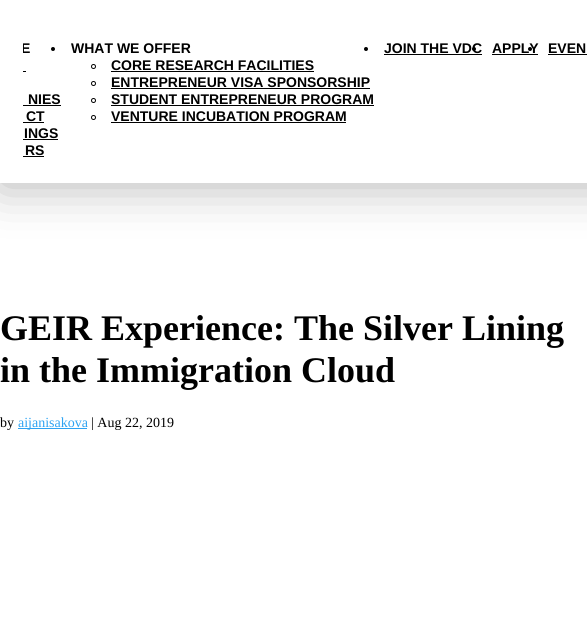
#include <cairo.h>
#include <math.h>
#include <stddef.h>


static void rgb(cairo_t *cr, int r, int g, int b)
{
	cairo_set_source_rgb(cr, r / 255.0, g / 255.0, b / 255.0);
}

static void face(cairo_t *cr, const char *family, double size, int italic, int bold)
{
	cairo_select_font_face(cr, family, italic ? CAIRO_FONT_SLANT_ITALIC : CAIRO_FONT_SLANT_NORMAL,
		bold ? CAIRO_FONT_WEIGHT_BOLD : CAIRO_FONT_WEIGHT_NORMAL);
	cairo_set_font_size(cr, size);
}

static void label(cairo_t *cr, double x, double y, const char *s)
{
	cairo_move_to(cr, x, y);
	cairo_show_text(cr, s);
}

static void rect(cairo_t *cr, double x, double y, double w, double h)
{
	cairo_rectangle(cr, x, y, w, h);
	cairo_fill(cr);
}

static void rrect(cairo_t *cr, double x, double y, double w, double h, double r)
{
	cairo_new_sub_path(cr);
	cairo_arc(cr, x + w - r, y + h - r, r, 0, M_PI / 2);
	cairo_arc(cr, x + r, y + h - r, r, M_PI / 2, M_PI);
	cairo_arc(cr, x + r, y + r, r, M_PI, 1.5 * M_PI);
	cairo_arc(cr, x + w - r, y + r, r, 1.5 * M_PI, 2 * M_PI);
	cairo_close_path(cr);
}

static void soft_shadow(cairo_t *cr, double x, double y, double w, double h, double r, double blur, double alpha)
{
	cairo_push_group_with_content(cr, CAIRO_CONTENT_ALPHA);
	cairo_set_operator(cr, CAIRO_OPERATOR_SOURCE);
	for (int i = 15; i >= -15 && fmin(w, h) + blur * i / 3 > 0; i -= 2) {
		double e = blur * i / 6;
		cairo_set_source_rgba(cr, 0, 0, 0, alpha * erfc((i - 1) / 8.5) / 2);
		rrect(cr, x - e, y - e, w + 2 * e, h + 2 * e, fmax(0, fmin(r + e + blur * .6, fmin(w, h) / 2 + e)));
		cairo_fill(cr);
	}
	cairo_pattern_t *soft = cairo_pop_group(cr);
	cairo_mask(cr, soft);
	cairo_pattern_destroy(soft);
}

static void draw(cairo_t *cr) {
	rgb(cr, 255, 255, 255);
	cairo_paint(cr);
	rgb(cr, 0, 0, 0);
	soft_shadow(cr, 0, 2, 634, 183, 0, 25, 0.3);
	rgb(cr, 255, 255, 255);
	rect(cr, 0, 0, 587, 183);
	cairo_save(cr);
	cairo_rectangle(cr, 23, 40, 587, 119);
	cairo_clip(cr);
	face(cr, "Liberation Sans", 14, 0, 1);
	rgb(cr, 0, 0, 0);
	label(cr, 21, 53, "E");
	cairo_restore(cr);
	rgb(cr, 0, 0, 0);
	rect(cr, 23, 71, 3, 1);
	face(cr, "Liberation Sans", 14, 0, 1);
	label(cr, 28, 104, "NIES");
	rect(cr, 23, 105, 38, 1);
	label(cr, 26, 121, "CT");
	rect(cr, 23, 122, 21, 1);
	label(cr, 24, 138, "INGS");
	rect(cr, 23, 139, 35, 1);
	label(cr, 25, 155, "RS");
	rect(cr, 23, 156, 21, 1);
	cairo_new_path(cr);
	cairo_arc(cr, 53, 49, 2, 0, 2 * M_PI);
	cairo_fill(cr);
	label(cr, 71, 53, "WHAT WE OFFER");
	cairo_new_path(cr);
	cairo_arc(cr, 93.5, 66.5, 2, 0, 2 * M_PI);
	cairo_set_line_width(cr, 1);
	cairo_stroke(cr);
	label(cr, 111, 70, "CORE RESEARCH FACILITIES");
	rect(cr, 111, 71, 203, 1);
	cairo_new_path(cr);
	cairo_arc(cr, 93.5, 83.5, 2, 0, 2 * M_PI);
	cairo_stroke(cr);
	label(cr, 111, 87, "ENTREPRENEUR VISA SPONSORSHIP");
	rect(cr, 111, 88, 259, 1);
	cairo_new_path(cr);
	cairo_arc(cr, 93.5, 100.5, 2, 0, 2 * M_PI);
	cairo_stroke(cr);
	label(cr, 111, 104, "STUDENT ENTREPRENEUR PROGRAM");
	rect(cr, 111, 105, 263, 1);
	cairo_new_path(cr);
	cairo_arc(cr, 93.5, 117.5, 2, 0, 2 * M_PI);
	cairo_stroke(cr);
	label(cr, 111, 121, "VENTURE INCUBATION PROGRAM");
	rect(cr, 111, 122, 235, 1);
	cairo_new_path(cr);
	cairo_arc(cr, 366, 49, 2, 0, 2 * M_PI);
	cairo_fill(cr);
	label(cr, 384, 53, "JOIN THE VDC");
	rect(cr, 384, 54, 98, 1);
	cairo_new_path(cr);
	cairo_arc(cr, 474, 49, 2, 0, 2 * M_PI);
	cairo_fill(cr);
	label(cr, 492, 53, "APPLY");
	rect(cr, 492, 54, 46, 1);
	cairo_new_path(cr);
	cairo_arc(cr, 530, 49, 2, 0, 2 * M_PI);
	cairo_fill(cr);
	label(cr, 548, 53, "EVEN");
	rect(cr, 548, 54, 39, 1);
	face(cr, "Liberation Serif", 36, 0, 1);
	label(cr, 0, 340, "GEIR Experience: The Silver Lining");
	label(cr, 0, 382, "in the Immigration Cloud");
	face(cr, "Liberation Serif", 14, 0, 0);
	label(cr, 0, 427, "by");
	rgb(cr, 46, 163, 242);
	rect(cr, 18, 428, 69, 1);
	label(cr, 18, 427, "aijanisakova");
	rgb(cr, 0, 0, 0);
	label(cr, 91, 427, "| Aug 22, 2019");
}

int main(void) {
	cairo_surface_t *surface = cairo_image_surface_create(CAIRO_FORMAT_RGB24, 587, 623);
	cairo_t *cr = cairo_create(surface);
	cairo_font_options_t *options = cairo_font_options_create();
	cairo_font_options_set_hint_metrics(options, CAIRO_HINT_METRICS_OFF);
	cairo_font_options_set_hint_style(options, CAIRO_HINT_STYLE_NONE);
	cairo_set_font_options(cr, options);
	cairo_set_miter_limit(cr, 4);
	draw(cr);
	cairo_surface_write_to_png(surface, "render.png");
	cairo_font_options_destroy(options);
	cairo_destroy(cr);
	cairo_surface_destroy(surface);
	return 0;
}
